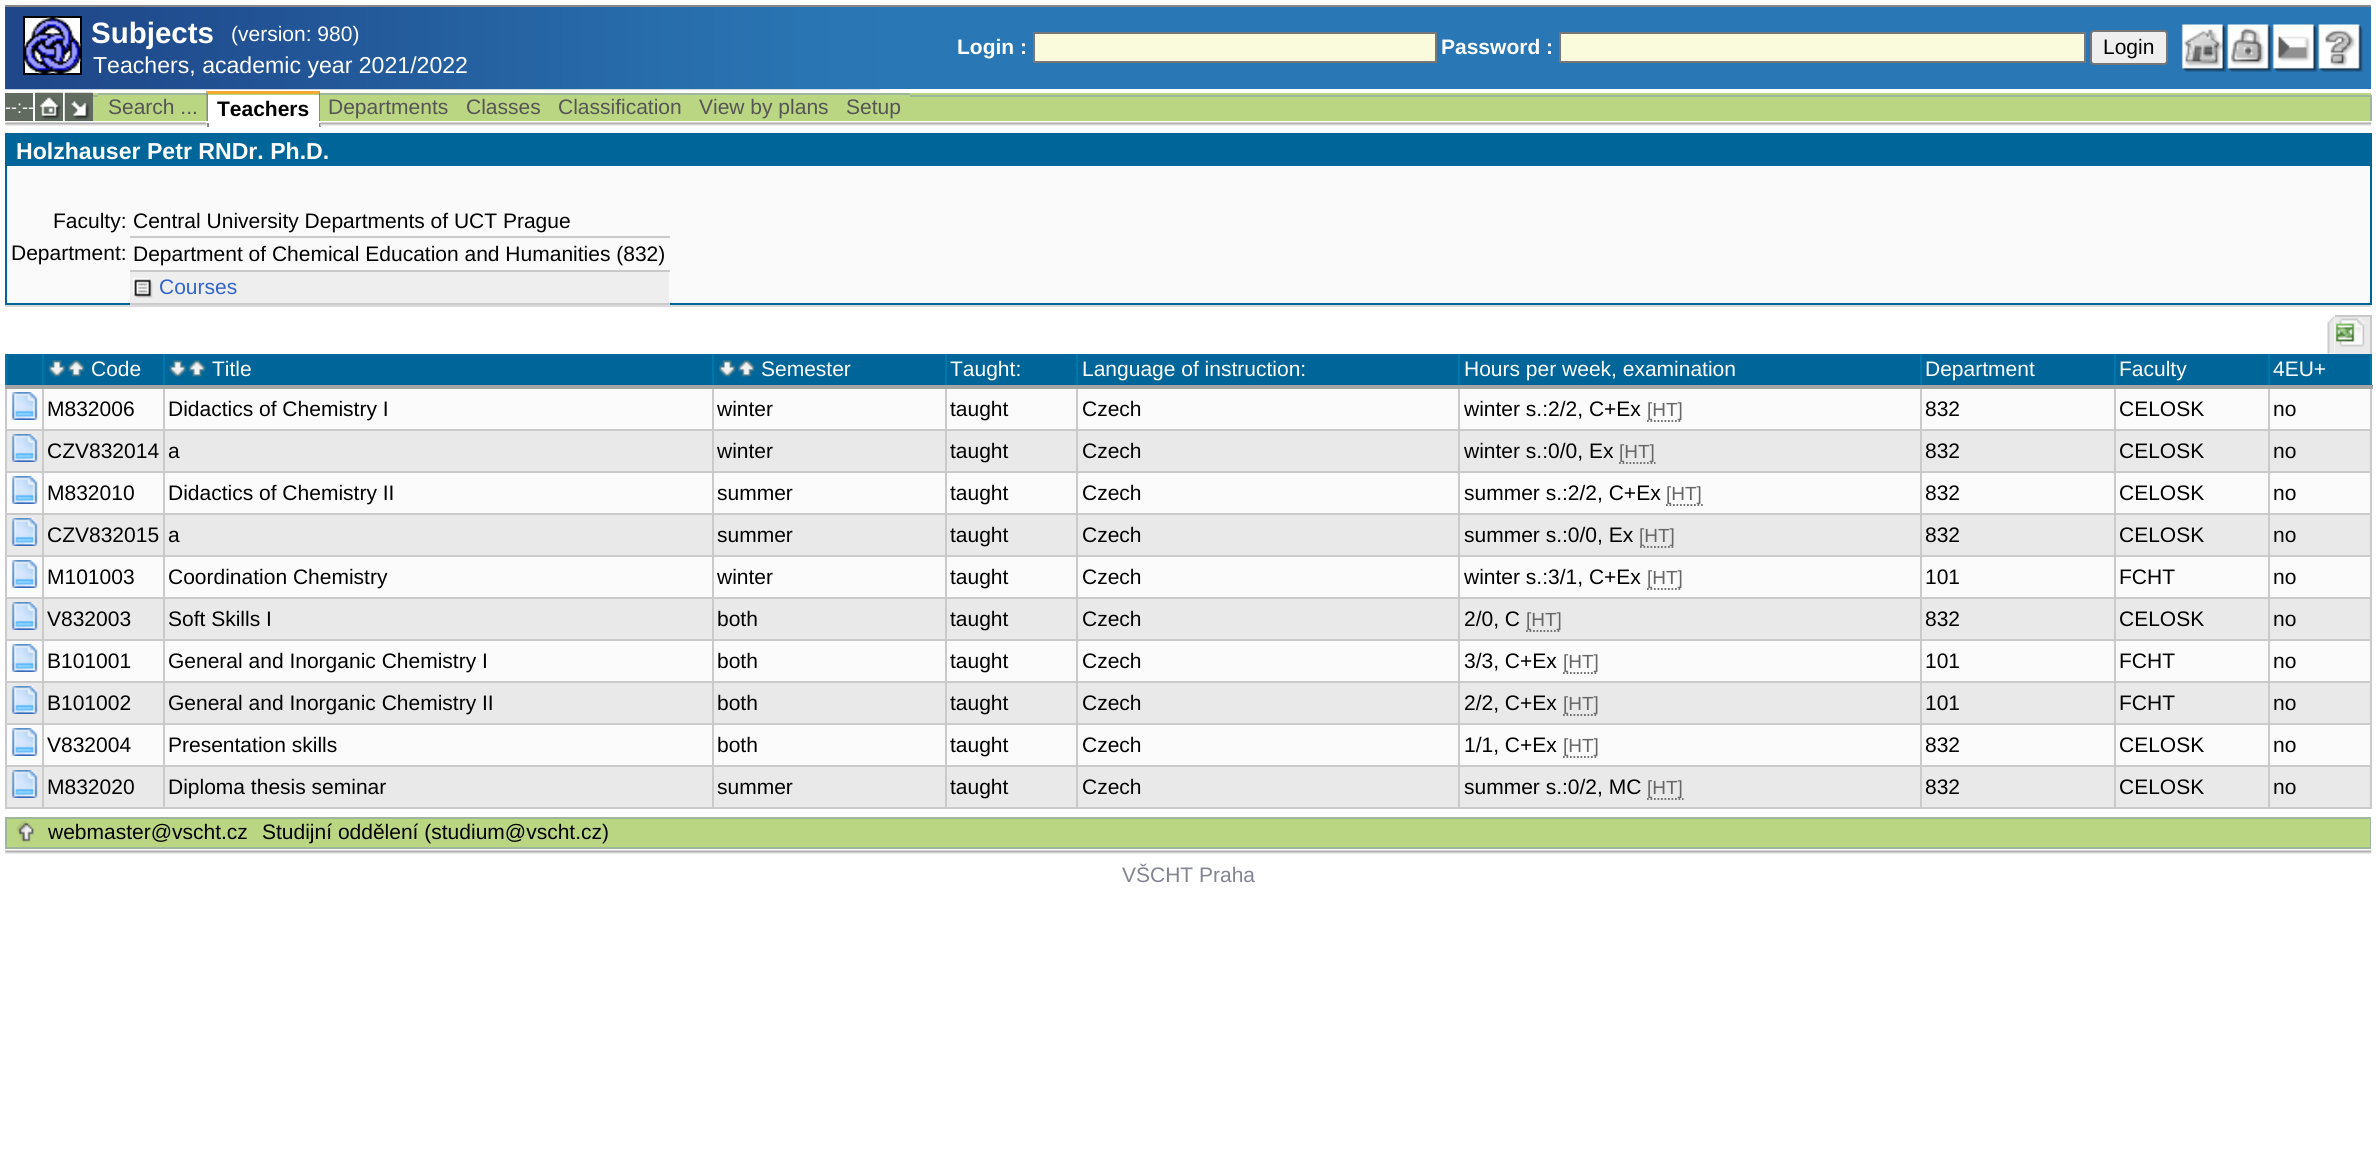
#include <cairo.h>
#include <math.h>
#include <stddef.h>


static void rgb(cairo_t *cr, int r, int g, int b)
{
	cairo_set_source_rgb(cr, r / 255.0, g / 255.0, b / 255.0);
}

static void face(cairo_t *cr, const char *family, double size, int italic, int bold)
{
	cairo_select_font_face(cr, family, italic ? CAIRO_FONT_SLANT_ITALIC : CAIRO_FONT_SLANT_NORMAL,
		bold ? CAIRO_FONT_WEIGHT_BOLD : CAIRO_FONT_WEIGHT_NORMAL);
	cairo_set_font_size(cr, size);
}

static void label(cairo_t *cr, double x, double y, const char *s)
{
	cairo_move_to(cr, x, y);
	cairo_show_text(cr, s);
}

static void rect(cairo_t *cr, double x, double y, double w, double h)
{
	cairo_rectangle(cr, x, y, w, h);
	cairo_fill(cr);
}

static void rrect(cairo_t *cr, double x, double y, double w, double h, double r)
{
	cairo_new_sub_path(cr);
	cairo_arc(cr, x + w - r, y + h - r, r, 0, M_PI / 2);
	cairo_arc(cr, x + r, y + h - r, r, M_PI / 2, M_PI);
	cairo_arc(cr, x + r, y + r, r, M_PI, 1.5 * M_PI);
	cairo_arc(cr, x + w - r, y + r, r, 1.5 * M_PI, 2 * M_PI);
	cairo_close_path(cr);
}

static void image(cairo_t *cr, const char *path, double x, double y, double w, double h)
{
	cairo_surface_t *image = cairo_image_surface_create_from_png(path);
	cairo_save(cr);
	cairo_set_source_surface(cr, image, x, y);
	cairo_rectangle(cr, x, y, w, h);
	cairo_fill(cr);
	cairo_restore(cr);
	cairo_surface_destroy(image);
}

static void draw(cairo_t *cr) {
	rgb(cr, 255, 255, 255);
	cairo_paint(cr);
	rgb(cr, 42, 119, 181);
	rect(cr, 5, 7, 2366, 82);
	image(cr, "image0.png", 5, 7, 876, 83);
	rgb(cr, 136, 136, 136);
	rect(cr, 5, 5, 2366, 2);
	rgb(cr, 255, 255, 255);
	cairo_rectangle(cr, 24, 17, 57, 57);
	cairo_fill_preserve(cr);
	rgb(cr, 0, 0, 0);
	cairo_stroke(cr);
	image(cr, "image1.png", 24, 17, 57, 57);
	face(cr, "Liberation Sans", 29.5, 0, 1);
	rgb(cr, 255, 255, 255);
	label(cr, 91, 43, "Subjects");
	face(cr, "Liberation Sans", 21, 0, 0);
	label(cr, 231, 41, "(version: 980)");
	face(cr, "Liberation Sans", 23.1, 0, 0);
	label(cr, 93, 73, "Teachers, academic year 2021/2022");
	face(cr, "Liberation Sans", 21, 0, 1);
	label(cr, 957, 54, "Login :");
	rgb(cr, 250, 250, 220);
	cairo_rectangle(cr, 1034, 33, 402, 29);
	cairo_fill_preserve(cr);
	rgb(cr, 119, 119, 119);
	cairo_stroke(cr);
	rgb(cr, 255, 255, 255);
	label(cr, 1441, 54, "Password :");
	rgb(cr, 250, 250, 220);
	cairo_rectangle(cr, 1560, 33, 525, 29);
	cairo_fill_preserve(cr);
	rgb(cr, 119, 119, 119);
	cairo_stroke(cr);
	rgb(cr, 239, 239, 239);
	rrect(cr, 2091, 31, 76, 33, 3);
	cairo_fill_preserve(cr);
	rgb(cr, 118, 118, 118);
	cairo_stroke(cr);
	face(cr, "Liberation Sans", 21, 0, 0);
	rgb(cr, 0, 0, 0);
	label(cr, 2103, 54, "Login");
	image(cr, "image2.png", 2181, 24, 45, 48);
	image(cr, "image3.png", 2227, 24, 45, 48);
	image(cr, "image4.png", 2272, 24, 45, 48);
	image(cr, "image5.png", 2318, 24, 45, 48);
	rgb(cr, 186, 214, 131);
	rect(cr, 93, 91, 2278, 30);
	rgb(cr, 97, 107, 96);
	rect(cr, 35, 120, 28, 1);
	image(cr, "image6.png", 35, 92, 28, 28);
	rect(cr, 65, 93, 28, 28);
	image(cr, "image7.png", 64, 92, 29, 29);
	rgb(cr, 255, 255, 255);
	rect(cr, 93, 91, 114, 2);
	rgb(cr, 158, 182, 155);
	rect(cr, 93, 95, 5, 2);
	rect(cr, 910, 95, 1461, 2);
	rect(cr, 2370, 95, 2, 26);
	rgb(cr, 97, 107, 96);
	rect(cr, 5, 93, 28, 28);
	face(cr, "Liberation Sans", 18, 0, 0);
	rgb(cr, 255, 255, 255);
	label(cr, 5, 113, "--:--");
	rgb(cr, 158, 182, 155);
	rect(cr, 98, 93, 109, 2);
	face(cr, "Liberation Sans", 21, 0, 0);
	rgb(cr, 85, 85, 85);
	label(cr, 108, 114, "Search ...");
	rgb(cr, 242, 169, 47);
	cairo_new_path(cr);
	cairo_move_to(cr, 206, 91);
	cairo_line_to(cr, 320, 91);
	cairo_line_to(cr, 318, 94);
	cairo_line_to(cr, 208, 94);
	cairo_close_path(cr);
	cairo_fill(cr);
	rgb(cr, 136, 136, 136);
	cairo_new_path(cr);
	cairo_move_to(cr, 320, 91);
	cairo_line_to(cr, 320, 121);
	cairo_line_to(cr, 318.5, 121);
	cairo_line_to(cr, 318.5, 94.5);
	cairo_close_path(cr);
	cairo_fill(cr);
	cairo_new_path(cr);
	cairo_move_to(cr, 206.5, 121);
	cairo_line_to(cr, 206.5, 91);
	cairo_line_to(cr, 208, 94.5);
	cairo_line_to(cr, 208, 121);
	cairo_close_path(cr);
	cairo_fill(cr);
	rgb(cr, 255, 255, 255);
	rect(cr, 208, 95, 111, 26);
	face(cr, "Liberation Sans", 21, 0, 1);
	rgb(cr, 0, 0, 0);
	label(cr, 217, 116, "Teachers");
	rgb(cr, 255, 255, 255);
	rect(cr, 320, 91, 2051, 2);
	rgb(cr, 158, 182, 155);
	rect(cr, 320, 93, 590, 2);
	face(cr, "Liberation Sans", 21, 0, 0);
	rgb(cr, 85, 85, 85);
	label(cr, 328, 114, "Departments");
	label(cr, 466, 114, "Classes");
	label(cr, 558, 114, "Classification");
	label(cr, 699, 114, "View by plans");
	label(cr, 846, 114, "Setup");
	image(cr, "image8.png", 5, 122, 202, 4);
	rgb(cr, 136, 136, 136);
	rect(cr, 319, 123, 2, 4);
	rect(cr, 207, 123, 2, 4);
	image(cr, "image9.png", 320, 122, 2052, 4);
	rgb(cr, 250, 250, 250);
	rect(cr, 7, 166, 2363, 137);
	rgb(cr, 0, 102, 153);
	rect(cr, 5, 133, 2366, 4);
	rect(cr, 2370, 133, 2, 172);
	rect(cr, 5, 303, 2366, 2);
	rect(cr, 5, 133, 2, 172);
	rect(cr, 7, 137, 2363, 29);
	face(cr, "Liberation Sans", 23.1, 0, 1);
	rgb(cr, 255, 255, 255);
	label(cr, 16, 159, "Holzhauser Petr RNDr. Ph.D.");
	face(cr, "Liberation Sans", 21, 0, 0);
	rgb(cr, 0, 0, 0);
	label(cr, 53, 228, "Faculty:");
	rgb(cr, 202, 202, 202);
	rect(cr, 130, 236, 540, 2);
	rgb(cr, 0, 0, 0);
	label(cr, 133, 228, "Central University Departments of UCT Prague");
	label(cr, 11, 260, "Department:");
	rgb(cr, 202, 202, 202);
	rect(cr, 130, 270, 540, 2);
	rgb(cr, 0, 0, 0);
	label(cr, 133, 261, "Department of Chemical Education and Humanities (832)");
	rgb(cr, 238, 238, 238);
	rect(cr, 130, 272, 539, 31);
	rgb(cr, 202, 202, 202);
	rect(cr, 130, 303, 540, 2);
	image(cr, "image10.png", 133, 278, 20, 20);
	rgb(cr, 51, 100, 202);
	label(cr, 159, 294, "Courses");
	rgb(cr, 218, 218, 218);
	rect(cr, 5, 305, 2366, 2);
	image(cr, "image11.png", 2327, 316, 8, 38);
	rgb(cr, 234, 234, 234);
	rect(cr, 2335, 317, 35, 37);
	rgb(cr, 202, 202, 202);
	rect(cr, 2335, 315, 36, 2);
	rect(cr, 2370, 315, 2, 39);
	image(cr, "image12.png", 2336, 318, 29, 29);
	rgb(cr, 0, 102, 153);
	rect(cr, 7, 354, 2363, 31);
	rgb(cr, 202, 202, 202);
	rect(cr, 5, 429, 2366, 2);
	rect(cr, 5, 471, 2366, 2);
	rect(cr, 5, 513, 2366, 2);
	rect(cr, 5, 555, 2366, 2);
	rect(cr, 5, 597, 2366, 2);
	rect(cr, 5, 639, 2366, 2);
	rect(cr, 5, 681, 2366, 2);
	rect(cr, 5, 723, 2366, 2);
	rect(cr, 5, 765, 2366, 2);
	rect(cr, 2370, 765, 2, 44);
	rect(cr, 5, 807, 2366, 2);
	rect(cr, 5, 765, 2, 44);
	rect(cr, 5, 723, 2, 44);
	rect(cr, 5, 681, 2, 44);
	rect(cr, 5, 639, 2, 44);
	rect(cr, 5, 597, 2, 44);
	rect(cr, 5, 555, 2, 44);
	rect(cr, 5, 513, 2, 44);
	rect(cr, 5, 471, 2, 44);
	rect(cr, 5, 387, 2, 86);
	rgb(cr, 0, 119, 170);
	rect(cr, 5, 354, 2, 35);
	rgb(cr, 251, 251, 251);
	rect(cr, 7, 389, 2363, 40);
	rgb(cr, 233, 233, 233);
	rect(cr, 7, 431, 2363, 40);
	rgb(cr, 251, 251, 251);
	rect(cr, 7, 473, 2363, 40);
	rgb(cr, 233, 233, 233);
	rect(cr, 7, 515, 2363, 40);
	rgb(cr, 251, 251, 251);
	rect(cr, 7, 557, 2363, 40);
	rgb(cr, 233, 233, 233);
	rect(cr, 7, 599, 2363, 40);
	rgb(cr, 251, 251, 251);
	rect(cr, 7, 641, 2363, 40);
	rgb(cr, 233, 233, 233);
	rect(cr, 7, 683, 2363, 40);
	rgb(cr, 251, 251, 251);
	rect(cr, 7, 725, 2363, 40);
	rgb(cr, 233, 233, 233);
	rect(cr, 7, 767, 2363, 40);
	rgb(cr, 202, 202, 202);
	rect(cr, 42, 387, 2, 422);
	rgb(cr, 0, 119, 170);
	rect(cr, 42, 354, 2, 35);
	rgb(cr, 202, 202, 202);
	rect(cr, 163, 387, 2, 422);
	rgb(cr, 0, 119, 170);
	rect(cr, 163, 354, 2, 35);
	rgb(cr, 202, 202, 202);
	rect(cr, 712, 387, 2, 422);
	rgb(cr, 0, 119, 170);
	rect(cr, 712, 354, 2, 35);
	rgb(cr, 202, 202, 202);
	rect(cr, 945, 387, 2, 422);
	rgb(cr, 0, 119, 170);
	rect(cr, 945, 354, 2, 35);
	rgb(cr, 202, 202, 202);
	rect(cr, 1076, 387, 2, 422);
	rgb(cr, 0, 119, 170);
	rect(cr, 1076, 354, 2, 35);
	rgb(cr, 202, 202, 202);
	rect(cr, 1458, 387, 2, 422);
	rgb(cr, 0, 119, 170);
	rect(cr, 1458, 354, 2, 35);
	rgb(cr, 202, 202, 202);
	rect(cr, 1920, 387, 2, 422);
	rgb(cr, 0, 119, 170);
	rect(cr, 1920, 354, 2, 35);
	rgb(cr, 202, 202, 202);
	rect(cr, 2114, 387, 2, 422);
	rgb(cr, 0, 119, 170);
	rect(cr, 2114, 354, 2, 35);
	rgb(cr, 202, 202, 202);
	rect(cr, 2370, 723, 2, 44);
	rect(cr, 2370, 681, 2, 44);
	rect(cr, 2370, 639, 2, 44);
	rect(cr, 2370, 597, 2, 44);
	rect(cr, 2370, 555, 2, 44);
	rect(cr, 2370, 513, 2, 44);
	rect(cr, 2370, 471, 2, 44);
	rect(cr, 2370, 387, 2, 86);
	rgb(cr, 0, 119, 170);
	rect(cr, 2370, 354, 2, 35);
	rgb(cr, 202, 202, 202);
	rect(cr, 2268, 387, 2, 422);
	rgb(cr, 0, 119, 170);
	rect(cr, 2268, 354, 2, 35);
	rgb(cr, 165, 165, 165);
	rect(cr, 5, 385, 2368, 4);
	image(cr, "image13.png", 48, 360, 18, 17);
	image(cr, "image14.png", 68, 360, 17, 17);
	rgb(cr, 255, 255, 255);
	label(cr, 91, 376, "Code");
	image(cr, "image15.png", 169, 360, 17, 17);
	image(cr, "image16.png", 188, 360, 18, 17);
	label(cr, 212, 376, "Title");
	image(cr, "image17.png", 719, 360, 17, 17);
	image(cr, "image18.png", 738, 360, 17, 17);
	label(cr, 761, 376, "Semester");
	label(cr, 950, 376, "Taught:");
	label(cr, 1082, 376, "Language of instruction:");
	label(cr, 1464, 376, "Hours per week, examination");
	label(cr, 1925, 376, "Department");
	label(cr, 2119, 376, "Faculty");
	label(cr, 2273, 376, "4EU+");
	image(cr, "image19.png", 11, 392, 27, 28);
	rgb(cr, 0, 0, 0);
	label(cr, 47, 416, "M832006");
	label(cr, 168, 416, "Didactics of Chemistry I");
	label(cr, 717, 416, "winter");
	label(cr, 950, 416, "taught");
	label(cr, 1082, 416, "Czech");
	label(cr, 1464, 416, "winter s.:2/2, C+Ex");
	face(cr, "Liberation Sans", 19, 0, 0);
	rgb(cr, 102, 102, 102);
	label(cr, 1647, 416, "[HT]");
	cairo_new_path(cr);
	cairo_move_to(cr, 1647, 421);
	cairo_line_to(cr, 1682, 421);
	cairo_set_line_width(cr, 1.8);
	cairo_set_dash(cr, (double[]){1.75, 1.75}, 2, 0);
	cairo_stroke(cr);
	face(cr, "Liberation Sans", 21, 0, 0);
	rgb(cr, 0, 0, 0);
	label(cr, 1925, 416, "832");
	label(cr, 2119, 416, "CELOSK");
	label(cr, 2273, 416, "no");
	image(cr, "image20.png", 11, 434, 27, 28);
	label(cr, 47, 458, "CZV832014");
	label(cr, 168, 458, "a");
	label(cr, 717, 458, "winter");
	label(cr, 950, 458, "taught");
	label(cr, 1082, 458, "Czech");
	label(cr, 1464, 458, "winter s.:0/0, Ex");
	face(cr, "Liberation Sans", 19, 0, 0);
	rgb(cr, 102, 102, 102);
	label(cr, 1619, 458, "[HT]");
	cairo_new_path(cr);
	cairo_move_to(cr, 1619, 463);
	cairo_line_to(cr, 1655.5, 463);
	cairo_stroke(cr);
	face(cr, "Liberation Sans", 21, 0, 0);
	rgb(cr, 0, 0, 0);
	label(cr, 1925, 458, "832");
	label(cr, 2119, 458, "CELOSK");
	label(cr, 2273, 458, "no");
	image(cr, "image19.png", 11, 476, 27, 28);
	label(cr, 47, 500, "M832010");
	label(cr, 168, 500, "Didactics of Chemistry II");
	label(cr, 717, 500, "summer");
	label(cr, 950, 500, "taught");
	label(cr, 1082, 500, "Czech");
	label(cr, 1464, 500, "summer s.:2/2, C+Ex");
	face(cr, "Liberation Sans", 19, 0, 0);
	rgb(cr, 102, 102, 102);
	label(cr, 1666, 500, "[HT]");
	cairo_new_path(cr);
	cairo_move_to(cr, 1666, 505);
	cairo_line_to(cr, 1703, 505);
	cairo_stroke(cr);
	face(cr, "Liberation Sans", 21, 0, 0);
	rgb(cr, 0, 0, 0);
	label(cr, 1925, 500, "832");
	label(cr, 2119, 500, "CELOSK");
	label(cr, 2273, 500, "no");
	image(cr, "image20.png", 11, 518, 27, 28);
	label(cr, 47, 542, "CZV832015");
	label(cr, 168, 542, "a");
	label(cr, 717, 542, "summer");
	label(cr, 950, 542, "taught");
	label(cr, 1082, 542, "Czech");
	label(cr, 1464, 542, "summer s.:0/0, Ex");
	face(cr, "Liberation Sans", 19, 0, 0);
	rgb(cr, 102, 102, 102);
	label(cr, 1639, 542, "[HT]");
	cairo_new_path(cr);
	cairo_move_to(cr, 1640, 547);
	cairo_line_to(cr, 1675, 547);
	cairo_stroke(cr);
	face(cr, "Liberation Sans", 21, 0, 0);
	rgb(cr, 0, 0, 0);
	label(cr, 1925, 542, "832");
	label(cr, 2119, 542, "CELOSK");
	label(cr, 2273, 542, "no");
	image(cr, "image19.png", 11, 560, 27, 28);
	label(cr, 47, 584, "M101003");
	label(cr, 168, 584, "Coordination Chemistry");
	label(cr, 717, 584, "winter");
	label(cr, 950, 584, "taught");
	label(cr, 1082, 584, "Czech");
	label(cr, 1464, 584, "winter s.:3/1, C+Ex");
	face(cr, "Liberation Sans", 19, 0, 0);
	rgb(cr, 102, 102, 102);
	label(cr, 1647, 584, "[HT]");
	cairo_new_path(cr);
	cairo_move_to(cr, 1647, 589);
	cairo_line_to(cr, 1682, 589);
	cairo_stroke(cr);
	face(cr, "Liberation Sans", 21, 0, 0);
	rgb(cr, 0, 0, 0);
	label(cr, 1925, 584, "101");
	label(cr, 2119, 584, "FCHT");
	label(cr, 2273, 584, "no");
	image(cr, "image20.png", 11, 602, 27, 28);
	label(cr, 47, 626, "V832003");
	label(cr, 168, 626, "Soft Skills I");
	label(cr, 717, 626, "both");
	label(cr, 950, 626, "taught");
	label(cr, 1082, 626, "Czech");
	label(cr, 1464, 626, "2/0, C");
	face(cr, "Liberation Sans", 19, 0, 0);
	rgb(cr, 102, 102, 102);
	label(cr, 1526, 626, "[HT]");
	cairo_new_path(cr);
	cairo_move_to(cr, 1526, 631);
	cairo_line_to(cr, 1561, 631);
	cairo_stroke(cr);
	face(cr, "Liberation Sans", 21, 0, 0);
	rgb(cr, 0, 0, 0);
	label(cr, 1925, 626, "832");
	label(cr, 2119, 626, "CELOSK");
	label(cr, 2273, 626, "no");
	image(cr, "image19.png", 11, 644, 27, 28);
	label(cr, 47, 668, "B101001");
	label(cr, 168, 668, "General and Inorganic Chemistry I");
	label(cr, 717, 668, "both");
	label(cr, 950, 668, "taught");
	label(cr, 1082, 668, "Czech");
	label(cr, 1464, 668, "3/3, C+Ex");
	face(cr, "Liberation Sans", 19, 0, 0);
	rgb(cr, 102, 102, 102);
	label(cr, 1563, 668, "[HT]");
	cairo_new_path(cr);
	cairo_move_to(cr, 1563, 673);
	cairo_line_to(cr, 1598, 673);
	cairo_stroke(cr);
	face(cr, "Liberation Sans", 21, 0, 0);
	rgb(cr, 0, 0, 0);
	label(cr, 1925, 668, "101");
	label(cr, 2119, 668, "FCHT");
	label(cr, 2273, 668, "no");
	image(cr, "image20.png", 11, 686, 27, 28);
	label(cr, 47, 710, "B101002");
	label(cr, 168, 710, "General and Inorganic Chemistry II");
	label(cr, 717, 710, "both");
	label(cr, 950, 710, "taught");
	label(cr, 1082, 710, "Czech");
	label(cr, 1464, 710, "2/2, C+Ex");
	face(cr, "Liberation Sans", 19, 0, 0);
	rgb(cr, 102, 102, 102);
	label(cr, 1563, 710, "[HT]");
	cairo_new_path(cr);
	cairo_move_to(cr, 1563, 715);
	cairo_line_to(cr, 1598, 715);
	cairo_stroke(cr);
	face(cr, "Liberation Sans", 21, 0, 0);
	rgb(cr, 0, 0, 0);
	label(cr, 1925, 710, "101");
	label(cr, 2119, 710, "FCHT");
	label(cr, 2273, 710, "no");
	image(cr, "image19.png", 11, 728, 27, 28);
	label(cr, 47, 752, "V832004");
	label(cr, 168, 752, "Presentation skills");
	label(cr, 717, 752, "both");
	label(cr, 950, 752, "taught");
	label(cr, 1082, 752, "Czech");
	label(cr, 1464, 752, "1/1, C+Ex");
	face(cr, "Liberation Sans", 19, 0, 0);
	rgb(cr, 102, 102, 102);
	label(cr, 1563, 752, "[HT]");
	cairo_new_path(cr);
	cairo_move_to(cr, 1563, 757);
	cairo_line_to(cr, 1598, 757);
	cairo_stroke(cr);
	face(cr, "Liberation Sans", 21, 0, 0);
	rgb(cr, 0, 0, 0);
	label(cr, 1925, 752, "832");
	label(cr, 2119, 752, "CELOSK");
	label(cr, 2273, 752, "no");
	image(cr, "image20.png", 11, 770, 27, 28);
	label(cr, 47, 794, "M832020");
	label(cr, 168, 794, "Diploma thesis seminar");
	label(cr, 717, 794, "summer");
	label(cr, 950, 794, "taught");
	label(cr, 1082, 794, "Czech");
	label(cr, 1464, 794, "summer s.:0/2, MC");
	face(cr, "Liberation Sans", 19, 0, 0);
	rgb(cr, 102, 102, 102);
	label(cr, 1647, 794, "[HT]");
	cairo_new_path(cr);
	cairo_move_to(cr, 1647, 799);
	cairo_line_to(cr, 1683.5, 799);
	cairo_stroke(cr);
	face(cr, "Liberation Sans", 21, 0, 0);
	rgb(cr, 0, 0, 0);
	label(cr, 1925, 794, "832");
	label(cr, 2119, 794, "CELOSK");
	label(cr, 2273, 794, "no");
	cairo_rectangle(cr, 6, 818, 2364, 30);
	rgb(cr, 158, 182, 155);
	cairo_set_line_width(cr, 2);
	cairo_set_dash(cr, NULL, 0, 0);
	cairo_stroke(cr);
	rgb(cr, 186, 214, 131);
	rect(cr, 7, 819, 2363, 28);
	image(cr, "image21.png", 16, 820, 18, 22);
	rgb(cr, 0, 0, 0);
	label(cr, 48, 839, "webmaster@vscht.cz");
	label(cr, 262, 839, "Studijní oddělení (studium@vscht.cz)");
	image(cr, "image22.png", 5, 850, 2367, 4);
	rgb(cr, 130, 132, 144);
	label(cr, 1122, 882, "VŠCHT Praha");
}

int main(void) {
	cairo_surface_t *surface = cairo_image_surface_create(CAIRO_FORMAT_RGB24, 2376, 1166);
	cairo_t *cr = cairo_create(surface);
	cairo_font_options_t *options = cairo_font_options_create();
	cairo_font_options_set_hint_metrics(options, CAIRO_HINT_METRICS_OFF);
	cairo_font_options_set_hint_style(options, CAIRO_HINT_STYLE_NONE);
	cairo_set_font_options(cr, options);
	cairo_set_miter_limit(cr, 4);
	draw(cr);
	cairo_surface_write_to_png(surface, "render.png");
	cairo_font_options_destroy(options);
	cairo_destroy(cr);
	cairo_surface_destroy(surface);
	return 0;
}
